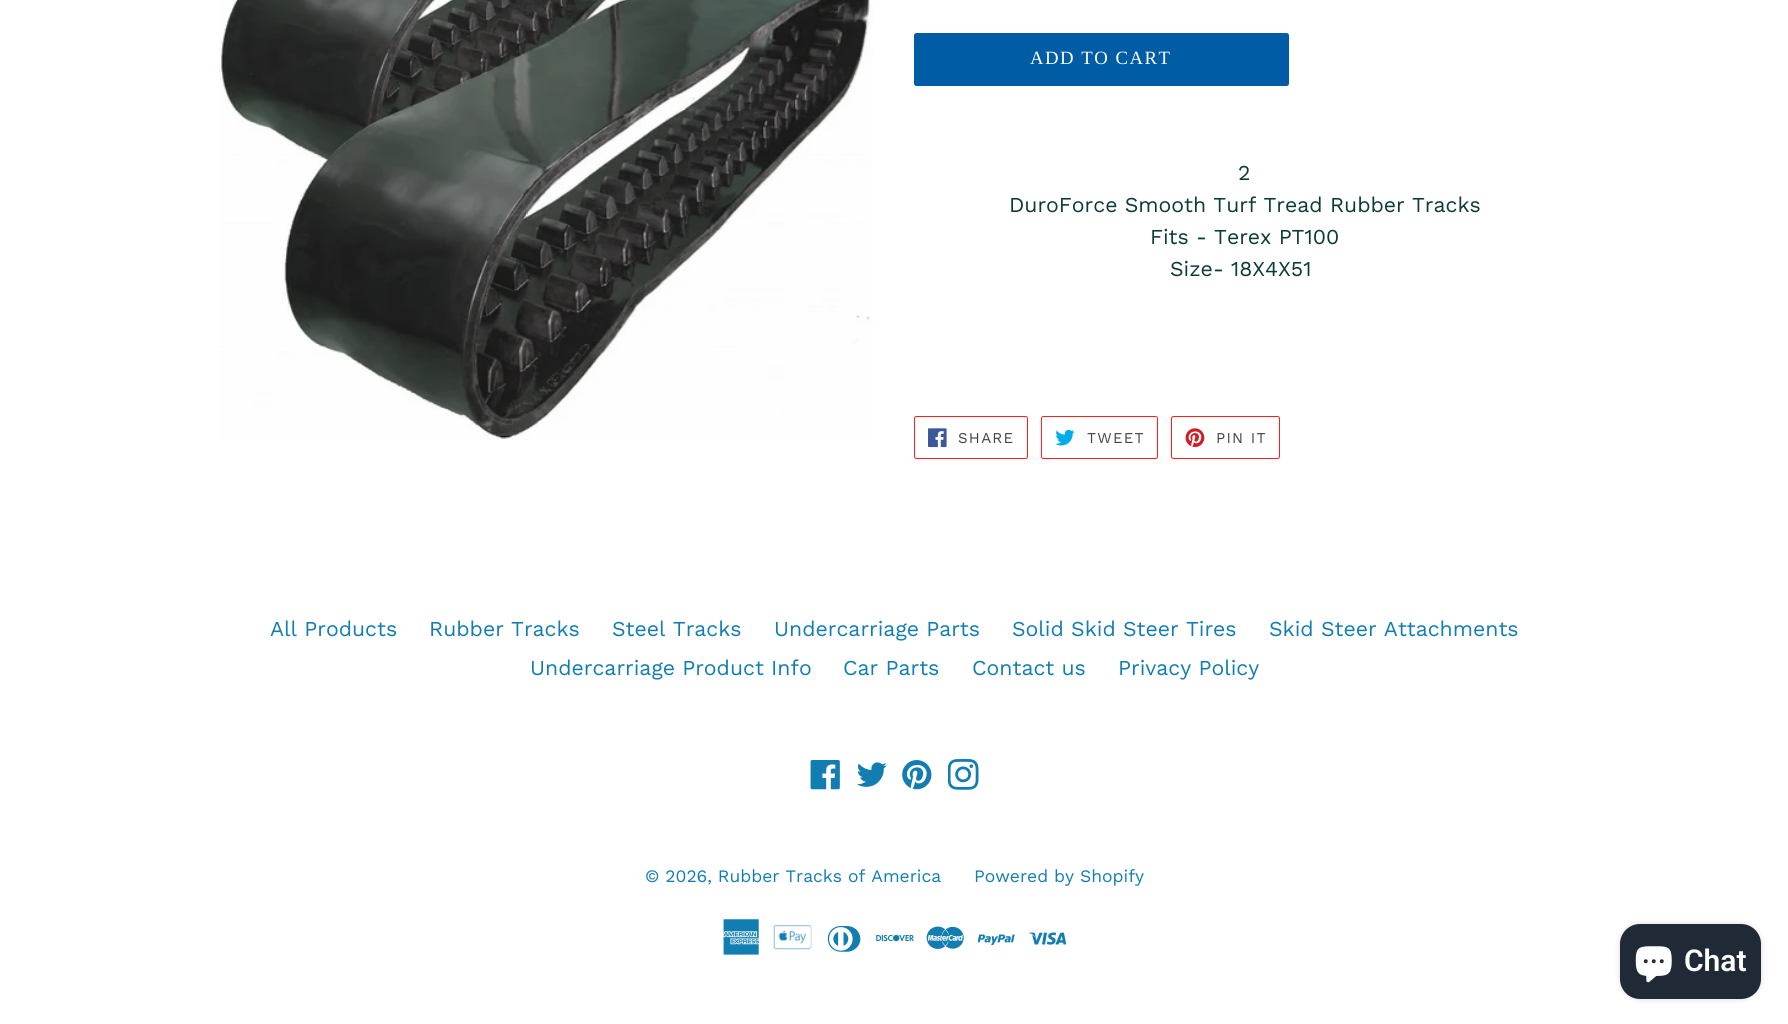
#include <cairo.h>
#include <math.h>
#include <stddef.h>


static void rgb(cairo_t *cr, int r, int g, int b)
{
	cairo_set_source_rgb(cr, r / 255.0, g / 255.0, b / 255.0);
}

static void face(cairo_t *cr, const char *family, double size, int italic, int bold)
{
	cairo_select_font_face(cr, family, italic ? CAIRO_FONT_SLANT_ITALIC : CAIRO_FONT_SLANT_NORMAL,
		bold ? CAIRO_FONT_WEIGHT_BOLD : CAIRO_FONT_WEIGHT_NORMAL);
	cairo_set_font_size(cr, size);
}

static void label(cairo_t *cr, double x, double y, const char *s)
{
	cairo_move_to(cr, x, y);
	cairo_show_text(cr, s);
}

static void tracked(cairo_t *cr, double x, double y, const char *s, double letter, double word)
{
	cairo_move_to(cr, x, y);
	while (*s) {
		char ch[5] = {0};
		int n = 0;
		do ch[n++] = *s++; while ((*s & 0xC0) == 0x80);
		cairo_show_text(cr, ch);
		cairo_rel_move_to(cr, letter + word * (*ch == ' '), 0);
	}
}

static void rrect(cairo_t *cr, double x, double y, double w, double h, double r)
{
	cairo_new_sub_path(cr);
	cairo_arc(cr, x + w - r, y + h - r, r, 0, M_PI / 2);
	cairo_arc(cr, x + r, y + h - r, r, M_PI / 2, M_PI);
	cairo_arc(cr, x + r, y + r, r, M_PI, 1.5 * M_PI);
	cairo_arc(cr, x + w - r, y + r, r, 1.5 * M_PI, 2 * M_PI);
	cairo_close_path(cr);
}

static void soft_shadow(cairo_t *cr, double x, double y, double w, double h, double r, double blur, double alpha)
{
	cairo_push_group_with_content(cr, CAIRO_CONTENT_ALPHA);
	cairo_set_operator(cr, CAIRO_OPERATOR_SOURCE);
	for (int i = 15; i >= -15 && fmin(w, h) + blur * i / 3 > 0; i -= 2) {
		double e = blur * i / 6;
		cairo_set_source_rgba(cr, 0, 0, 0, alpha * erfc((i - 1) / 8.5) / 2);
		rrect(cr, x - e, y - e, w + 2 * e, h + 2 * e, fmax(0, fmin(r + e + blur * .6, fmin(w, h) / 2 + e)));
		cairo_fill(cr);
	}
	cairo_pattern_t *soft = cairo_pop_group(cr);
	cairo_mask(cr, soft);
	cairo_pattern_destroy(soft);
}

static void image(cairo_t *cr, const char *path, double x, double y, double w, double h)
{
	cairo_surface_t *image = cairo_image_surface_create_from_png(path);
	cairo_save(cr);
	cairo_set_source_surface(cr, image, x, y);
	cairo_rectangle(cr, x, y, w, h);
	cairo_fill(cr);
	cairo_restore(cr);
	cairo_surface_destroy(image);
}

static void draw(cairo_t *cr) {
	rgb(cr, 255, 255, 255);
	cairo_paint(cr);
	image(cr, "image0.png", 219, 0, 654, 440);
	rgb(cr, 0, 92, 165);
	rrect(cr, 914, 33, 375, 53, 2.5);
	cairo_fill(cr);
	face(cr, "Liberation Serif", 18.75, 0, 0);
	rgb(cr, 255, 255, 255);
	tracked(cr, 1030, 64, "ADD TO CART", 1.5, 0);
	face(cr, "Work Sans", 21.25, 0, 0);
	rgb(cr, 11, 59, 55);
	label(cr, 1238, 180, "2");
	label(cr, 1009, 212, "DuroForce Smooth Turf Tread Rubber Tracks");
	label(cr, 1150, 244, "Fits - Terex PT100");
	label(cr, 1170, 276, "Size- 18X4X51");
	rrect(cr, 914.5, 416.5, 113, 42, 2);
	rgb(cr, 255, 29, 29);
	cairo_set_line_width(cr, 1);
	cairo_stroke(cr);
	image(cr, "image1.png", 928, 428, 19, 20);
	face(cr, "Work Sans", 15, 0, 0);
	rgb(cr, 61, 66, 70);
	tracked(cr, 958, 443, "SHARE", 1.25, 0);
	rrect(cr, 1041.5, 416.5, 116, 42, 2);
	rgb(cr, 255, 29, 29);
	cairo_stroke(cr);
	image(cr, "image2.png", 1055, 429, 20, 17);
	rgb(cr, 61, 66, 70);
	tracked(cr, 1087, 443, "TWEET", 1.25, 0);
	rrect(cr, 1171.5, 416.5, 108, 42, 2);
	rgb(cr, 255, 29, 29);
	cairo_stroke(cr);
	image(cr, "image3.png", 1185, 428, 20, 19);
	rgb(cr, 61, 66, 70);
	tracked(cr, 1216, 443, "PIN IT", 1.25, 0);
	face(cr, "Work Sans", 21.25, 0, 0);
	rgb(cr, 17, 125, 177);
	label(cr, 270, 636, "All Products");
	label(cr, 429, 636, "Rubber Tracks");
	label(cr, 612, 636, "Steel Tracks");
	label(cr, 774, 636, "Undercarriage Parts");
	label(cr, 1012, 636, "Solid Skid Steer Tires");
	label(cr, 1269, 636, "Skid Steer Attachments");
	label(cr, 530, 675, "Undercarriage Product Info");
	label(cr, 843, 675, "Car Parts");
	label(cr, 972, 675, "Contact us");
	label(cr, 1118, 675, "Privacy Policy");
	image(cr, "image4.png", 810, 760, 30, 30);
	image(cr, "image5.png", 857, 762, 30, 25);
	image(cr, "image6.png", 902, 760, 30, 30);
	image(cr, "image7.png", 948, 759, 31, 31);
	face(cr, "Work Sans", 17.5, 0, 0);
	label(cr, 645, 882, "© 2026, Rubber Tracks of America");
	label(cr, 974, 882, "Powered by Shopify");
	image(cr, "image8.png", 723, 919, 36, 36);
	image(cr, "image9.png", 773, 925, 39, 25);
	image(cr, "image10.png", 827, 926, 34, 26);
	image(cr, "image11.png", 876, 934, 38, 8);
	image(cr, "image12.png", 926, 926, 38, 23);
	image(cr, "image13.png", 978, 934, 37, 11);
	image(cr, "image14.png", 1029, 932, 37, 13);
	rgb(cr, 0, 0, 0);
	soft_shadow(cr, 1620, 924, 141, 75, 20, 3, 0.15);
	rgb(cr, 32, 42, 54);
	rrect(cr, 1620, 924, 141, 75, 20);
	cairo_fill(cr);
	image(cr, "image15.png", 1635, 946, 37, 37);
	face(cr, "Roboto SemiBold", 30, 0, 0);
	rgb(cr, 255, 255, 255);
	label(cr, 1684, 971, "Chat");
}

int main(void) {
	cairo_surface_t *surface = cairo_image_surface_create(CAIRO_FORMAT_RGB24, 1788, 1024);
	cairo_t *cr = cairo_create(surface);
	cairo_font_options_t *options = cairo_font_options_create();
	cairo_font_options_set_hint_metrics(options, CAIRO_HINT_METRICS_OFF);
	cairo_font_options_set_hint_style(options, CAIRO_HINT_STYLE_NONE);
	cairo_set_font_options(cr, options);
	cairo_set_miter_limit(cr, 4);
	draw(cr);
	cairo_surface_write_to_png(surface, "render.png");
	cairo_font_options_destroy(options);
	cairo_destroy(cr);
	cairo_surface_destroy(surface);
	return 0;
}
